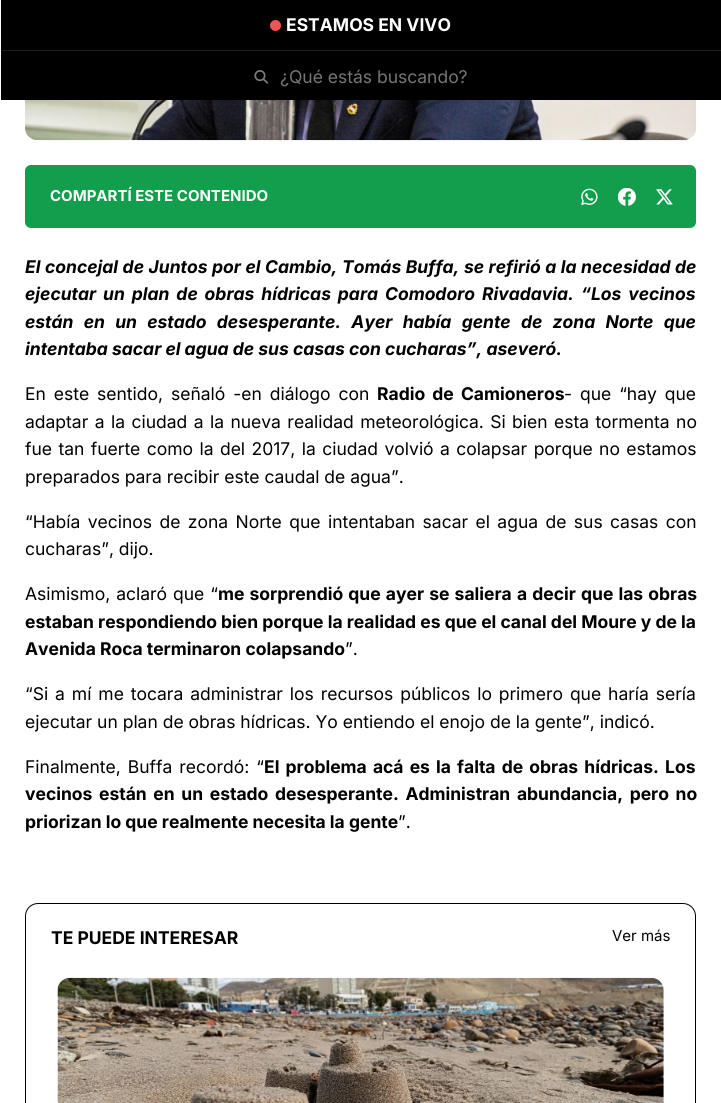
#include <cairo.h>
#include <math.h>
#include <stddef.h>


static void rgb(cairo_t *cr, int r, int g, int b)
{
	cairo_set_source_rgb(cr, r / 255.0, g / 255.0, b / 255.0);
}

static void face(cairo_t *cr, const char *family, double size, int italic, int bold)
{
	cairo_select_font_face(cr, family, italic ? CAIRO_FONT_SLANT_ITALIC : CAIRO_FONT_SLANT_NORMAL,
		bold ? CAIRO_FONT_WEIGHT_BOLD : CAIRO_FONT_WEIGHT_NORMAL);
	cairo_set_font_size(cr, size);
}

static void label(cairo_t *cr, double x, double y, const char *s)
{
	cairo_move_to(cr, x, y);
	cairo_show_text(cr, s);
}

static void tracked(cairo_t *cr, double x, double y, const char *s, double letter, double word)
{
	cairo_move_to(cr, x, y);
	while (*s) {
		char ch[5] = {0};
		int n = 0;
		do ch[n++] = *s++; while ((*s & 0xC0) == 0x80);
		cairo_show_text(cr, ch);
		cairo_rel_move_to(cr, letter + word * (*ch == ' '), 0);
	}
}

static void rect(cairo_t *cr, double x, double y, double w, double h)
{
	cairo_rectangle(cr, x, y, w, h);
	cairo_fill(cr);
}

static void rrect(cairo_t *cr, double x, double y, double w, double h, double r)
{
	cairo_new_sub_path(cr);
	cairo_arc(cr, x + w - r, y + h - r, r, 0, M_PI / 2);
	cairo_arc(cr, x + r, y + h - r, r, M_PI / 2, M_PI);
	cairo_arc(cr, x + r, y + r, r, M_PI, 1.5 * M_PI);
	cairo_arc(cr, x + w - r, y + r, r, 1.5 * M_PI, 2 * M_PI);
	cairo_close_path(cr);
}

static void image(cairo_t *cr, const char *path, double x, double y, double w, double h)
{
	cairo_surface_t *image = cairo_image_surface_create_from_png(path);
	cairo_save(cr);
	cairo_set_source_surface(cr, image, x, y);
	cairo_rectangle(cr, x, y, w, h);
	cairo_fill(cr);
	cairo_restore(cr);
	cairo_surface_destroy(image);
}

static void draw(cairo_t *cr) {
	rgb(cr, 255, 255, 255);
	cairo_paint(cr);
	rgb(cr, 0, 0, 0);
	rect(cr, 1, 0, 720, 50);
	rgb(cr, 239, 83, 83);
	cairo_arc(cr, 275.5, 25.5, 5.5, 0, 2 * M_PI);
	cairo_fill(cr);
	face(cr, "Inter", 17.5, 0, 1);
	rgb(cr, 255, 255, 255);
	label(cr, 286, 31, "ESTAMOS EN VIVO");
	rgb(cr, 0, 0, 0);
	rect(cr, 1, 51, 720, 49);
	rgb(cr, 30, 30, 30);
	rect(cr, 1, 50, 720, 1);
	image(cr, "image0.png", 254, 70, 14, 14);
	face(cr, "Inter", 17.5, 0, 0);
	rgb(cr, 117, 117, 117);
	label(cr, 280, 83, "¿Qué estás buscando?");
	image(cr, "image1.png", 25, 100, 671, 41);
	rgb(cr, 18, 158, 76);
	rrect(cr, 25, 165, 671, 63, 6);
	cairo_fill(cr);
	face(cr, "Inter", 15, 0, 1);
	rgb(cr, 255, 255, 255);
	label(cr, 50, 201, "COMPARTÍ ESTE CONTENIDO");
	image(cr, "image2.png", 581, 188, 17, 17);
	image(cr, "image3.png", 618, 188, 18, 18);
	image(cr, "image4.png", 656, 189, 17, 16);
	face(cr, "Inter", 17.5, 1, 1);
	rgb(cr, 0, 0, 0);
	tracked(cr, 25, 273, "El concejal de Juntos por el Cambio, Tomás Buffa, se refirió a la necesidad de", 0, 0.4);
	tracked(cr, 25, 300, "ejecutar un plan de obras hídricas para Comodoro Rivadavia. “Los vecinos", 0, 2.75);
	tracked(cr, 25, 328, "están en un estado desesperante. Ayer había gente de zona Norte que", 0, 6.1);
	label(cr, 25, 355, "intentaba sacar el agua de sus casas con cucharas”, aseveró.");
	face(cr, "Inter", 17.5, 0, 0);
	tracked(cr, 25, 400, "En este sentido, señaló -en diálogo con", 0, 3);
	face(cr, "Inter", 17.5, 0, 1);
	tracked(cr, 377, 400, "Radio de Camioneros", 0, 3);
	face(cr, "Inter", 17.5, 0, 0);
	tracked(cr, 564, 400, "- que “hay que", 0, 3);
	tracked(cr, 25, 428, "adaptar a la ciudad a la nueva realidad meteorológica. Si bien esta tormenta no", 0, 1.5);
	tracked(cr, 25, 455, "fue tan fuerte como la del 2017, la ciudad volvió a colapsar porque no estamos", 0, 1.5);
	label(cr, 25, 483, "preparados para recibir este caudal de agua”.");
	tracked(cr, 25, 528, "“Había vecinos de zona Norte que intentaban sacar el agua de sus casas con", 0, 2.5);
	label(cr, 25, 555, "cucharas”, dijo.");
	tracked(cr, 25, 600, "Asimismo, aclaró que “", 0, 1);
	face(cr, "Inter", 17.5, 0, 1);
	tracked(cr, 218, 600, "me sorprendió que ayer se saliera a decir que las obras", 0, 1);
	label(cr, 25, 628, "estaban respondiendo bien porque la realidad es que el canal del Moure y de la");
	label(cr, 25, 655, "Avenida Roca terminaron colapsando");
	face(cr, "Inter", 17.5, 0, 0);
	label(cr, 345, 655, "”.");
	tracked(cr, 25, 700, "“Si a mí me tocara administrar los recursos públicos lo primero que haría sería", 0, 2);
	label(cr, 25, 728, "ejecutar un plan de obras hídricas. Yo entiendo el enojo de la gente”, indicó.");
	tracked(cr, 25, 773, "Finalmente, Buffa recordó: “", 0, 2);
	face(cr, "Inter", 17.5, 0, 1);
	tracked(cr, 264, 773, "El problema acá es la falta de obras hídricas. Los", 0, 2);
	tracked(cr, 25, 800, "vecinos están en un estado desesperante. Administran abundancia, pero no", 0, 2.5);
	label(cr, 25, 828, "priorizan lo que realmente necesita la gente");
	face(cr, "Inter", 17.5, 0, 0);
	label(cr, 398, 828, "”.");
	rrect(cr, 25.5, 903.5, 670, 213, 12.5);
	cairo_set_line_width(cr, 1);
	cairo_stroke(cr);
	face(cr, "Inter", 17.5, 0, 1);
	label(cr, 51, 944, "TE PUEDE INTERESAR");
	face(cr, "Inter", 15, 0, 0);
	label(cr, 612, 941, "Ver más");
	image(cr, "image5.png", 57, 977, 607, 126);
}

int main(void) {
	cairo_surface_t *surface = cairo_image_surface_create(CAIRO_FORMAT_RGB24, 721, 1103);
	cairo_t *cr = cairo_create(surface);
	cairo_font_options_t *options = cairo_font_options_create();
	cairo_font_options_set_hint_metrics(options, CAIRO_HINT_METRICS_OFF);
	cairo_font_options_set_hint_style(options, CAIRO_HINT_STYLE_NONE);
	cairo_set_font_options(cr, options);
	cairo_set_miter_limit(cr, 4);
	draw(cr);
	cairo_surface_write_to_png(surface, "render.png");
	cairo_font_options_destroy(options);
	cairo_destroy(cr);
	cairo_surface_destroy(surface);
	return 0;
}
